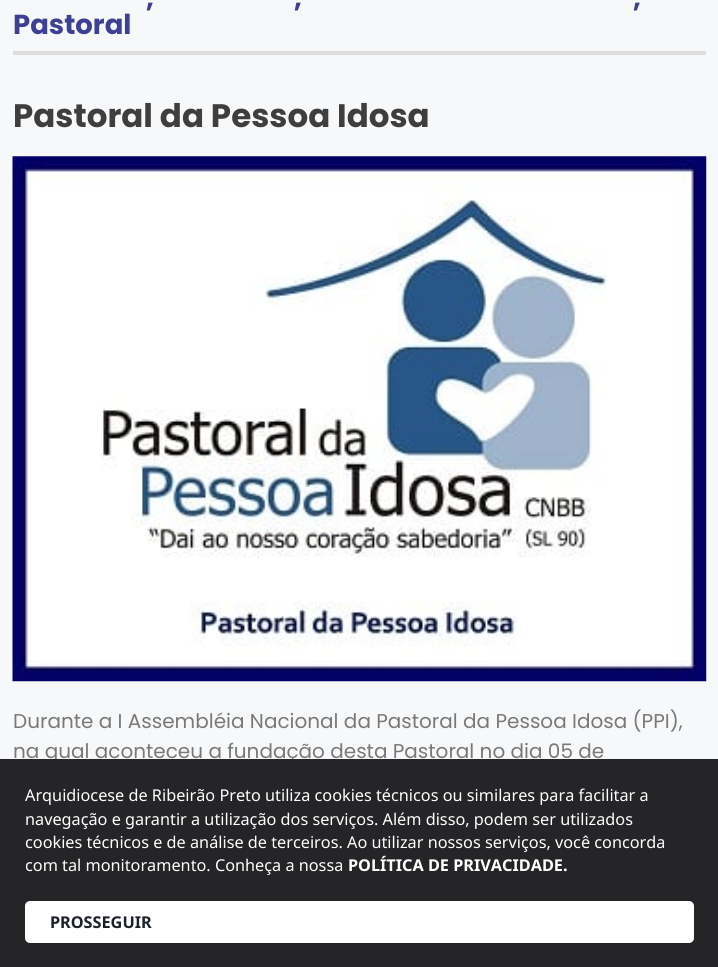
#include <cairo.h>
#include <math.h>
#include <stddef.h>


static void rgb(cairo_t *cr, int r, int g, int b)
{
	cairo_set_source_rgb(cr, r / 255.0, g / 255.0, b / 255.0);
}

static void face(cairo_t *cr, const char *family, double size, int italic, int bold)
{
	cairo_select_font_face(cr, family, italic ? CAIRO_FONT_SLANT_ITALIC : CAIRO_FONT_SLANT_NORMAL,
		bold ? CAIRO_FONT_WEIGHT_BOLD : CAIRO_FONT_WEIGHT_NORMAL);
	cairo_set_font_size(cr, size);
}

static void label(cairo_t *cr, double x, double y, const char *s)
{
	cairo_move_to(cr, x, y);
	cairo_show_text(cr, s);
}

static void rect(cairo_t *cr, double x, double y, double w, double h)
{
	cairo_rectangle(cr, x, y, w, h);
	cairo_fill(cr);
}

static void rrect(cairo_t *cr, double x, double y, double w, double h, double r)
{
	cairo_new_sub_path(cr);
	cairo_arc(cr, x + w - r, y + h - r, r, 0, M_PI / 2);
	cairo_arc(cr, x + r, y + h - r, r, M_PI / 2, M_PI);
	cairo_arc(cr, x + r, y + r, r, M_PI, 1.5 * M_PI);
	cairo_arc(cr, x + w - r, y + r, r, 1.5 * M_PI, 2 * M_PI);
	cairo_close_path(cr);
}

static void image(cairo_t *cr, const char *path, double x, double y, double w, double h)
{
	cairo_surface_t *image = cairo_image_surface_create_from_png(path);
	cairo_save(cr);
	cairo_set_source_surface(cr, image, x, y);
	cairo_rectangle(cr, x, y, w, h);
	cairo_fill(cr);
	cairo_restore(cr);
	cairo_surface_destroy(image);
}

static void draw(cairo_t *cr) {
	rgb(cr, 247, 248, 249);
	cairo_paint(cr);
	face(cr, "Poppins", 27.5, 0, 1);
	rgb(cr, 62, 64, 149);
	label(cr, 146, 7, ",");
	label(cr, 294, 7, ",");
	label(cr, 633, 7, ",");
	label(cr, 13, 34, "Pastoral");
	rgb(cr, 221, 221, 221);
	rect(cr, 13, 51, 693, 4);
	face(cr, "Poppins", 32.5, 0, 1);
	rgb(cr, 62, 62, 62);
	label(cr, 13, 127, "Pastoral da Pessoa Idosa");
	image(cr, "image0.png", 12, 156, 695, 526);
	face(cr, "Poppins", 20, 0, 0);
	rgb(cr, 121, 121, 121);
	label(cr, 13, 728, "Durante a I Assembléia Nacional da Pastoral da Pessoa Idosa (PPI),");
	label(cr, 13, 758, "na qual aconteceu a fundação desta Pastoral no dia 05 de");
	rgb(cr, 37, 37, 40);
	rect(cr, 0, 759, 718, 208);
	face(cr, "Noto Sans", 16.25, 0, 0);
	rgb(cr, 255, 255, 255);
	label(cr, 25, 801, "Arquidiocese de Ribeirão Preto utiliza cookies técnicos ou similares para facilitar a");
	label(cr, 25, 825, "navegação e garantir a utilização dos serviços. Além disso, podem ser utilizados");
	label(cr, 25, 848, "cookies técnicos e de análise de terceiros. Ao utilizar nossos serviços, você concorda");
	label(cr, 25, 871, "com tal monitoramento. Conheça a nossa");
	face(cr, "Noto Sans", 16.25, 0, 1);
	label(cr, 348, 871, "POLÍTICA DE PRIVACIDADE.");
	rrect(cr, 25, 901, 669, 42, 5);
	cairo_fill(cr);
	rgb(cr, 29, 33, 41);
	label(cr, 50, 928, "PROSSEGUIR");
}

int main(void) {
	cairo_surface_t *surface = cairo_image_surface_create(CAIRO_FORMAT_RGB24, 718, 967);
	cairo_t *cr = cairo_create(surface);
	cairo_font_options_t *options = cairo_font_options_create();
	cairo_font_options_set_hint_metrics(options, CAIRO_HINT_METRICS_OFF);
	cairo_font_options_set_hint_style(options, CAIRO_HINT_STYLE_NONE);
	cairo_set_font_options(cr, options);
	cairo_set_miter_limit(cr, 4);
	draw(cr);
	cairo_surface_write_to_png(surface, "render.png");
	cairo_font_options_destroy(options);
	cairo_destroy(cr);
	cairo_surface_destroy(surface);
	return 0;
}
